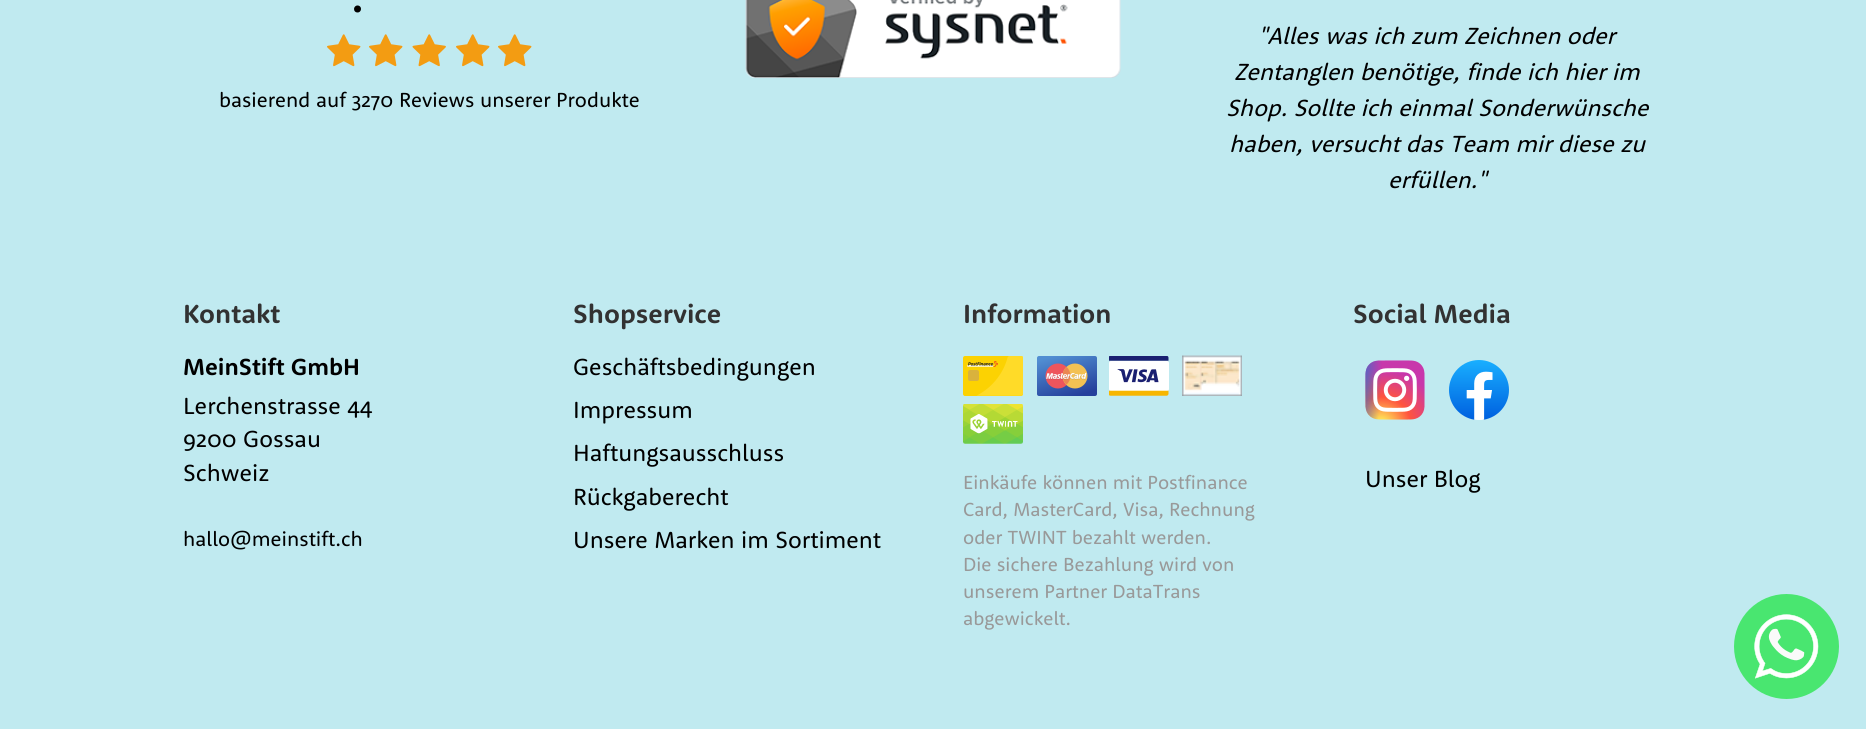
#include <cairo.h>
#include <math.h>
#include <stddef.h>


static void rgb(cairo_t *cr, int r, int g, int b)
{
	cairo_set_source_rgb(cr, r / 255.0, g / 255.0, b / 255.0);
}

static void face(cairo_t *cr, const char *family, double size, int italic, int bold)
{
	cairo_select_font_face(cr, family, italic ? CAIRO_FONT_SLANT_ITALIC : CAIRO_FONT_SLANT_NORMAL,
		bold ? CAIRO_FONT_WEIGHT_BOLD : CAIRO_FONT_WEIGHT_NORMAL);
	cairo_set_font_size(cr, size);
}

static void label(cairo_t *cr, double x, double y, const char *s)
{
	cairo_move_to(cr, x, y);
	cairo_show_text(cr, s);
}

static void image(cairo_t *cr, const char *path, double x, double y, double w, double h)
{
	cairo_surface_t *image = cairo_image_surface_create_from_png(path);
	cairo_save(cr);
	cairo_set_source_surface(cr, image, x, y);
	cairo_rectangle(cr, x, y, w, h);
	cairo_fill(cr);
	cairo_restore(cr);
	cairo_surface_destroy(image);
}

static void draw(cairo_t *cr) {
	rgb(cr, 192, 234, 240);
	cairo_paint(cr);
	face(cr, "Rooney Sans", 54, 0, 0);
	rgb(cr, 0, 0, 0);
	label(cr, 350, 12, ".");
	image(cr, "image0.png", 327, 34, 34, 33);
	image(cr, "image0.png", 369, 34, 34, 33);
	image(cr, "image1.png", 412, 34, 34, 33);
	image(cr, "image0.png", 456, 34, 34, 33);
	image(cr, "image0.png", 498, 34, 34, 33);
	face(cr, "Rooney Sans", 21, 0, 0);
	label(cr, 219, 107, "basierend auf 3270 Reviews unserer Produkte");
	image(cr, "image2.png", 745, 0, 376, 78);
	face(cr, "Rooney Sans", 24, 1, 0);
	label(cr, 1258, 44, "\"Alles was ich zum Zeichnen oder");
	label(cr, 1234, 80, "Zentanglen benötige, finde ich hier im");
	label(cr, 1226, 116, "Shop. Sollte ich einmal Sonderwünsche");
	label(cr, 1229, 152, "haben, versucht das Team mir diese zu");
	label(cr, 1388, 188, "erfüllen.\"");
	face(cr, "Rooney Sans", 27, 0, 1);
	rgb(cr, 50, 50, 50);
	label(cr, 183, 323, "Kontakt");
	face(cr, "Rooney Sans", 24, 0, 1);
	rgb(cr, 0, 0, 0);
	label(cr, 183, 375, "MeinStift GmbH");
	face(cr, "Rooney Sans", 24, 0, 0);
	label(cr, 183, 414, "Lerchenstrasse 44");
	label(cr, 183, 447, "9200 Gossau");
	label(cr, 183, 481, "Schweiz");
	face(cr, "Rooney Sans", 21, 0, 0);
	label(cr, 183, 546, "hallo@meinstift.ch");
	face(cr, "Rooney Sans", 27, 0, 1);
	rgb(cr, 50, 50, 50);
	label(cr, 573, 323, "Shopservice");
	face(cr, "Rooney Sans", 24, 0, 0);
	rgb(cr, 0, 0, 0);
	label(cr, 573, 375, "Geschäftsbedingungen");
	label(cr, 573, 418, "Impressum");
	label(cr, 573, 461, "Haftungsausschluss");
	label(cr, 573, 505, "Rückgaberecht");
	label(cr, 573, 548, "Unsere Marken im Sortiment");
	face(cr, "Rooney Sans", 27, 0, 1);
	rgb(cr, 50, 50, 50);
	label(cr, 963, 323, "Information");
	image(cr, "image3.png", 963, 356, 60, 40);
	image(cr, "image4.png", 1037, 356, 60, 40);
	image(cr, "image5.png", 1109, 356, 60, 40);
	image(cr, "image6.png", 1182, 355, 60, 41);
	image(cr, "image7.png", 963, 404, 60, 40);
	face(cr, "Rooney Sans", 19.5, 0, 0);
	rgb(cr, 153, 153, 153);
	label(cr, 963, 489, "Einkäufe können mit Postfinance");
	label(cr, 963, 516, "Card, MasterCard, Visa, Rechnung");
	label(cr, 963, 544, "oder TWINT bezahlt werden.");
	label(cr, 963, 571, "Die sichere Bezahlung wird von");
	label(cr, 963, 598, "unserem Partner DataTrans");
	label(cr, 963, 625, "abgewickelt.");
	face(cr, "Rooney Sans", 27, 0, 1);
	rgb(cr, 50, 50, 50);
	label(cr, 1353, 323, "Social Media");
	image(cr, "image8.png", 1365, 360, 60, 60);
	image(cr, "image9.png", 1449, 360, 60, 60);
	face(cr, "Rooney Sans", 24, 0, 0);
	rgb(cr, 0, 0, 0);
	label(cr, 1365, 487, "Unser Blog");
	image(cr, "image10.png", 1734, 594, 105, 105);
}

int main(void) {
	cairo_surface_t *surface = cairo_image_surface_create(CAIRO_FORMAT_RGB24, 1866, 729);
	cairo_t *cr = cairo_create(surface);
	cairo_font_options_t *options = cairo_font_options_create();
	cairo_font_options_set_hint_metrics(options, CAIRO_HINT_METRICS_OFF);
	cairo_font_options_set_hint_style(options, CAIRO_HINT_STYLE_NONE);
	cairo_set_font_options(cr, options);
	cairo_set_miter_limit(cr, 4);
	draw(cr);
	cairo_surface_write_to_png(surface, "render.png");
	cairo_font_options_destroy(options);
	cairo_destroy(cr);
	cairo_surface_destroy(surface);
	return 0;
}
